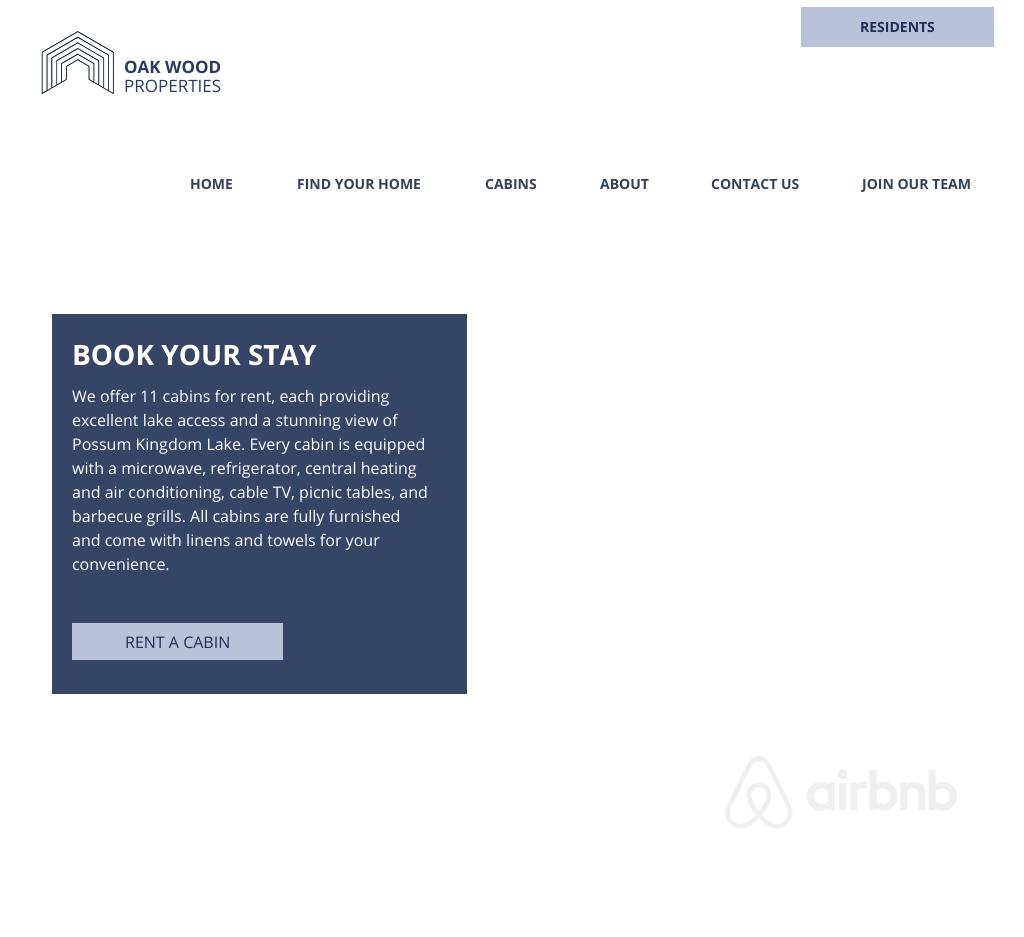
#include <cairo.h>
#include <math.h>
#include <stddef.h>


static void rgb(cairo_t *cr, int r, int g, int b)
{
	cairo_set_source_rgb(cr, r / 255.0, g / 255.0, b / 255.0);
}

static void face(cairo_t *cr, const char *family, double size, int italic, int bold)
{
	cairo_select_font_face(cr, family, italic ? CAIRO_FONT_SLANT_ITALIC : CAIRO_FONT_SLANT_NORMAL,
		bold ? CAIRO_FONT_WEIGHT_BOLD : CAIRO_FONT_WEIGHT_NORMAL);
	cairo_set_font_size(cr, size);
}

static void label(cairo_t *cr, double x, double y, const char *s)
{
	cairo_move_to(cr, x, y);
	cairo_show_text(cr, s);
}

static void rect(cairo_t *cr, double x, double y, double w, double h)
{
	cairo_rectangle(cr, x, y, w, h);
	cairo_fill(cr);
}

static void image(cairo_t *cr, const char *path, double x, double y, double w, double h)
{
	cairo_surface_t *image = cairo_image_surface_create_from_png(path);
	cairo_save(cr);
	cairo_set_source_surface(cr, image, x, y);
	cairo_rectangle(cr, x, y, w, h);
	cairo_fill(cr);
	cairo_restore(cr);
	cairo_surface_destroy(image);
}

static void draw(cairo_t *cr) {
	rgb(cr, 255, 255, 255);
	cairo_paint(cr);
	rgb(cr, 184, 194, 216);
	rect(cr, 801, 7, 193, 40);
	face(cr, "Open Sans", 14, 0, 1);
	rgb(cr, 30, 48, 84);
	label(cr, 860, 32, "RESIDENTS");
	image(cr, "image0.png", 41, 31, 73, 64);
	face(cr, "Open Sans", 17, 0, 1);
	rgb(cr, 40, 59, 98);
	label(cr, 124, 73, "OAK WOOD");
	face(cr, "Open Sans", 17, 0, 0);
	label(cr, 124, 92, "PROPERTIES");
	face(cr, "Open Sans", 14, 0, 1);
	rgb(cr, 50, 65, 88);
	label(cr, 190, 189, "HOME");
	label(cr, 297, 189, "FIND YOUR HOME");
	label(cr, 485, 189, "CABINS");
	label(cr, 600, 189, "ABOUT");
	label(cr, 711, 189, "CONTACT US");
	label(cr, 862, 189, "JOIN OUR TEAM");
	rgb(cr, 53, 69, 101);
	rect(cr, 52, 314, 415, 380);
	face(cr, "Open Sans", 28, 0, 1);
	rgb(cr, 255, 255, 255);
	label(cr, 72, 365, "BOOK YOUR STAY");
	face(cr, "Open Sans", 16, 0, 0);
	label(cr, 72, 402, "We offer 11 cabins for rent, each providing");
	label(cr, 72, 426, "excellent lake access and a stunning view of");
	label(cr, 72, 450, "Possum Kingdom Lake. Every cabin is equipped");
	label(cr, 72, 474, "with a microwave, refrigerator, central heating");
	label(cr, 72, 498, "and air conditioning, cable TV, picnic tables, and");
	label(cr, 72, 522, "barbecue grills. All cabins are fully furnished");
	label(cr, 72, 546, "and come with linens and towels for your");
	label(cr, 72, 570, "convenience.");
	rgb(cr, 184, 194, 216);
	rect(cr, 72, 623, 211, 37);
	rgb(cr, 30, 48, 84);
	label(cr, 125, 648, "RENT A CABIN");
	image(cr, "image1.png", 725, 756, 232, 73);
}

int main(void) {
	cairo_surface_t *surface = cairo_image_surface_create(CAIRO_FORMAT_RGB24, 1024, 937);
	cairo_t *cr = cairo_create(surface);
	cairo_font_options_t *options = cairo_font_options_create();
	cairo_font_options_set_hint_metrics(options, CAIRO_HINT_METRICS_OFF);
	cairo_font_options_set_hint_style(options, CAIRO_HINT_STYLE_NONE);
	cairo_set_font_options(cr, options);
	cairo_set_miter_limit(cr, 4);
	draw(cr);
	cairo_surface_write_to_png(surface, "render.png");
	cairo_font_options_destroy(options);
	cairo_destroy(cr);
	cairo_surface_destroy(surface);
	return 0;
}
